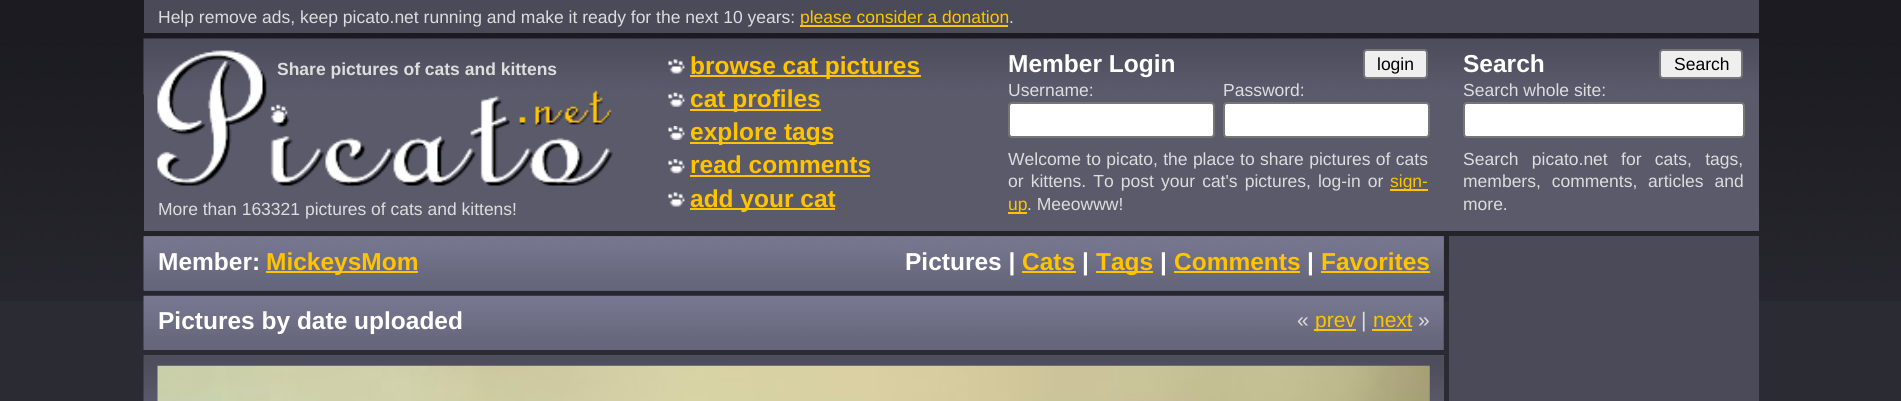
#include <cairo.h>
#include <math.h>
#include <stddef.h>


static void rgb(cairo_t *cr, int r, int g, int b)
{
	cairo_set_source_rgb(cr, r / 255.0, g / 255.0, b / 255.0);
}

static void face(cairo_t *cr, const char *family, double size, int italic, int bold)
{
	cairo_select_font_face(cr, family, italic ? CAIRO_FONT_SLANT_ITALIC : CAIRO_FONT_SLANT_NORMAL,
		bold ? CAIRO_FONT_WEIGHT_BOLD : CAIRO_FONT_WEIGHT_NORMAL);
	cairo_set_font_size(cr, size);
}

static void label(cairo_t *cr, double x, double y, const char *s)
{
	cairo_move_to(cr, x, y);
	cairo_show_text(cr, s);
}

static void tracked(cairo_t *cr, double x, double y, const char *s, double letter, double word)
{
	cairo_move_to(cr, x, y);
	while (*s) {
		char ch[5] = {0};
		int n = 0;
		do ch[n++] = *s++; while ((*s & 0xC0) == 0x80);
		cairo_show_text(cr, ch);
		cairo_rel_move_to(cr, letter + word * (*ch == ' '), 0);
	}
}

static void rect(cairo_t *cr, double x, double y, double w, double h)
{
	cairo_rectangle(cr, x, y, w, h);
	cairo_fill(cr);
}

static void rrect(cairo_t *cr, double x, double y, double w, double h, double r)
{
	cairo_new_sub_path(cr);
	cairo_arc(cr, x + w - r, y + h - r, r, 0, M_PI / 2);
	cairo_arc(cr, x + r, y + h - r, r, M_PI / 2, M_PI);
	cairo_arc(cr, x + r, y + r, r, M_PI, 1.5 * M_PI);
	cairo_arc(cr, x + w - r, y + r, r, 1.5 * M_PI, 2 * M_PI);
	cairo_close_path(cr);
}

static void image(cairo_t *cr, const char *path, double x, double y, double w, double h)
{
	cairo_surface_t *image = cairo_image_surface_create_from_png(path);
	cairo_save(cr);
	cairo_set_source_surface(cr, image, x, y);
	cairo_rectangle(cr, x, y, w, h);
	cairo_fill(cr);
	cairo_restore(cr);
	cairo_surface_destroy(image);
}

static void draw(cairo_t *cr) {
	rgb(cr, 43, 43, 51);
	cairo_paint(cr);
	image(cr, "image0.png", 0, 0, 1901, 301);
	rgb(cr, 74, 74, 89);
	rect(cr, 144, 0, 1615, 33);
	face(cr, "Liberation Sans", 17.5, 0, 0);
	rgb(cr, 221, 221, 221);
	label(cr, 158, 23, "Help remove ads, keep picato.net running and make it ready for the next 10 years:");
	rgb(cr, 255, 195, 0);
	rect(cr, 800, 25, 208, 2);
	label(cr, 800, 23, "please consider a donation");
	rgb(cr, 221, 221, 221);
	label(cr, 1009, 23, ".");
	rgb(cr, 90, 90, 107);
	rect(cr, 144, 39, 1615, 192);
	image(cr, "image1.png", 143, 38, 1616, 57);
	image(cr, "image7.png", 157, 50, 456, 138);
	face(cr, "Liberation Sans", 17.5, 0, 1);
	rgb(cr, 221, 221, 221);
	label(cr, 277, 75, "Share pictures of cats and kittens");
	image(cr, "image2.png", 668, 59, 17, 15);
	rgb(cr, 255, 195, 0);
	rect(cr, 690, 75, 231, 2);
	face(cr, "Liberation Sans", 24.5, 0, 1);
	label(cr, 690, 74, "browse cat pictures");
	image(cr, "image3.png", 668, 92, 17, 15);
	rect(cr, 690, 109, 131, 2);
	label(cr, 690, 107, "cat profiles");
	image(cr, "image4.png", 668, 126, 17, 14);
	rect(cr, 690, 142, 143, 2);
	label(cr, 690, 140, "explore tags");
	image(cr, "image5.png", 668, 159, 17, 15);
	label(cr, 690, 173, "read comments");
	rect(cr, 690, 175, 180, 2);
	image(cr, "image6.png", 668, 192, 17, 15);
	rect(cr, 690, 208, 145, 2);
	label(cr, 690, 207, "add your cat");
	rgb(cr, 255, 255, 255);
	label(cr, 1008, 72, "Member Login");
	rgb(cr, 239, 239, 239);
	rrect(cr, 1364, 50, 63, 28, 3);
	cairo_fill_preserve(cr);
	rgb(cr, 118, 118, 118);
	cairo_stroke(cr);
	face(cr, "Liberation Sans", 17.5, 0, 0);
	rgb(cr, 0, 0, 0);
	label(cr, 1377, 70, "login");
	rgb(cr, 221, 221, 221);
	label(cr, 1008, 96, "Username:");
	rgb(cr, 255, 255, 255);
	rrect(cr, 1009, 103, 205, 34, 3);
	cairo_fill_preserve(cr);
	rgb(cr, 118, 118, 118);
	cairo_stroke(cr);
	rgb(cr, 221, 221, 221);
	label(cr, 1223, 96, "Password:");
	rgb(cr, 255, 255, 255);
	rrect(cr, 1224, 103, 205, 34, 3);
	cairo_fill_preserve(cr);
	rgb(cr, 118, 118, 118);
	cairo_stroke(cr);
	rgb(cr, 221, 221, 221);
	tracked(cr, 1008, 165, "Welcome to picato, the place to share pictures of cats", 0, 0.5);
	tracked(cr, 1008, 187, "or kittens. To post your cat's pictures, log-in or", 0, 2.25);
	rgb(cr, 255, 195, 0);
	rect(cr, 1390, 189, 38, 2);
	label(cr, 1390, 187, "sign-");
	rect(cr, 1008, 212, 19, 2);
	label(cr, 1008, 210, "up");
	rgb(cr, 221, 221, 221);
	label(cr, 1027, 210, ". Meeowww!");
	face(cr, "Liberation Sans", 24.5, 0, 1);
	rgb(cr, 255, 255, 255);
	label(cr, 1463, 72, "Search");
	rgb(cr, 239, 239, 239);
	rrect(cr, 1660, 50, 82, 28, 3);
	cairo_fill_preserve(cr);
	rgb(cr, 118, 118, 118);
	cairo_stroke(cr);
	face(cr, "Liberation Sans", 17.5, 0, 0);
	rgb(cr, 0, 0, 0);
	label(cr, 1674, 70, "Search");
	rgb(cr, 221, 221, 221);
	label(cr, 1463, 96, "Search whole site:");
	rgb(cr, 255, 255, 255);
	rrect(cr, 1464, 103, 280, 34, 3);
	cairo_fill_preserve(cr);
	rgb(cr, 118, 118, 118);
	cairo_stroke(cr);
	rgb(cr, 221, 221, 221);
	tracked(cr, 1463, 165, "Search picato.net for cats, tags,", 0, 8.5);
	tracked(cr, 1463, 187, "members, comments, articles and", 0, 6);
	label(cr, 1463, 210, "more.");
	label(cr, 158, 215, "More than 163321 pictures of cats and kittens!");
	rgb(cr, 90, 90, 107);
	rect(cr, 144, 236, 1300, 55);
	image(cr, "image8.png", 143, 236, 1301, 55);
	face(cr, "Liberation Sans", 24.5, 0, 1);
	rgb(cr, 255, 255, 255);
	label(cr, 158, 270, "Member:");
	rgb(cr, 255, 195, 0);
	rect(cr, 266, 271, 152, 2);
	label(cr, 266, 270, "MickeysMom");
	rgb(cr, 255, 255, 255);
	label(cr, 905, 270, "Pictures |");
	rgb(cr, 255, 195, 0);
	label(cr, 1022, 270, "Cats");
	rect(cr, 1022, 271, 54, 2);
	rgb(cr, 255, 255, 255);
	label(cr, 1082, 270, "|");
	rgb(cr, 255, 195, 0);
	rect(cr, 1096, 271, 57, 2);
	label(cr, 1096, 270, "Tags");
	rgb(cr, 255, 255, 255);
	label(cr, 1160, 270, "|");
	rgb(cr, 255, 195, 0);
	label(cr, 1174, 270, "Comments");
	rect(cr, 1174, 271, 126, 2);
	rgb(cr, 255, 255, 255);
	label(cr, 1307, 270, "|");
	rgb(cr, 255, 195, 0);
	label(cr, 1321, 270, "Favorites");
	rect(cr, 1321, 271, 109, 2);
	image(cr, "image9.png", 143, 295, 1301, 55);
	rgb(cr, 255, 255, 255);
	label(cr, 158, 329, "Pictures by date uploaded");
	face(cr, "Liberation Sans", 21, 0, 0);
	rgb(cr, 221, 221, 221);
	label(cr, 1297, 327, "«");
	rgb(cr, 255, 195, 0);
	rect(cr, 1314, 329, 42, 2);
	label(cr, 1315, 327, "prev");
	rgb(cr, 221, 221, 221);
	label(cr, 1361, 327, "|");
	rgb(cr, 255, 195, 0);
	label(cr, 1373, 327, "next");
	rect(cr, 1372, 329, 40, 2);
	rgb(cr, 221, 221, 221);
	label(cr, 1418, 327, "»");
	rgb(cr, 90, 90, 107);
	rect(cr, 144, 355, 1300, 46);
	image(cr, "image10.png", 143, 355, 1301, 46);
	image(cr, "image11.png", 157, 365, 1273, 36);
	rgb(cr, 74, 74, 89);
	rect(cr, 1449, 236, 310, 165);
}

int main(void) {
	cairo_surface_t *surface = cairo_image_surface_create(CAIRO_FORMAT_RGB24, 1901, 401);
	cairo_t *cr = cairo_create(surface);
	cairo_font_options_t *options = cairo_font_options_create();
	cairo_font_options_set_hint_metrics(options, CAIRO_HINT_METRICS_OFF);
	cairo_font_options_set_hint_style(options, CAIRO_HINT_STYLE_NONE);
	cairo_set_font_options(cr, options);
	cairo_set_miter_limit(cr, 4);
	draw(cr);
	cairo_surface_write_to_png(surface, "render.png");
	cairo_font_options_destroy(options);
	cairo_destroy(cr);
	cairo_surface_destroy(surface);
	return 0;
}
